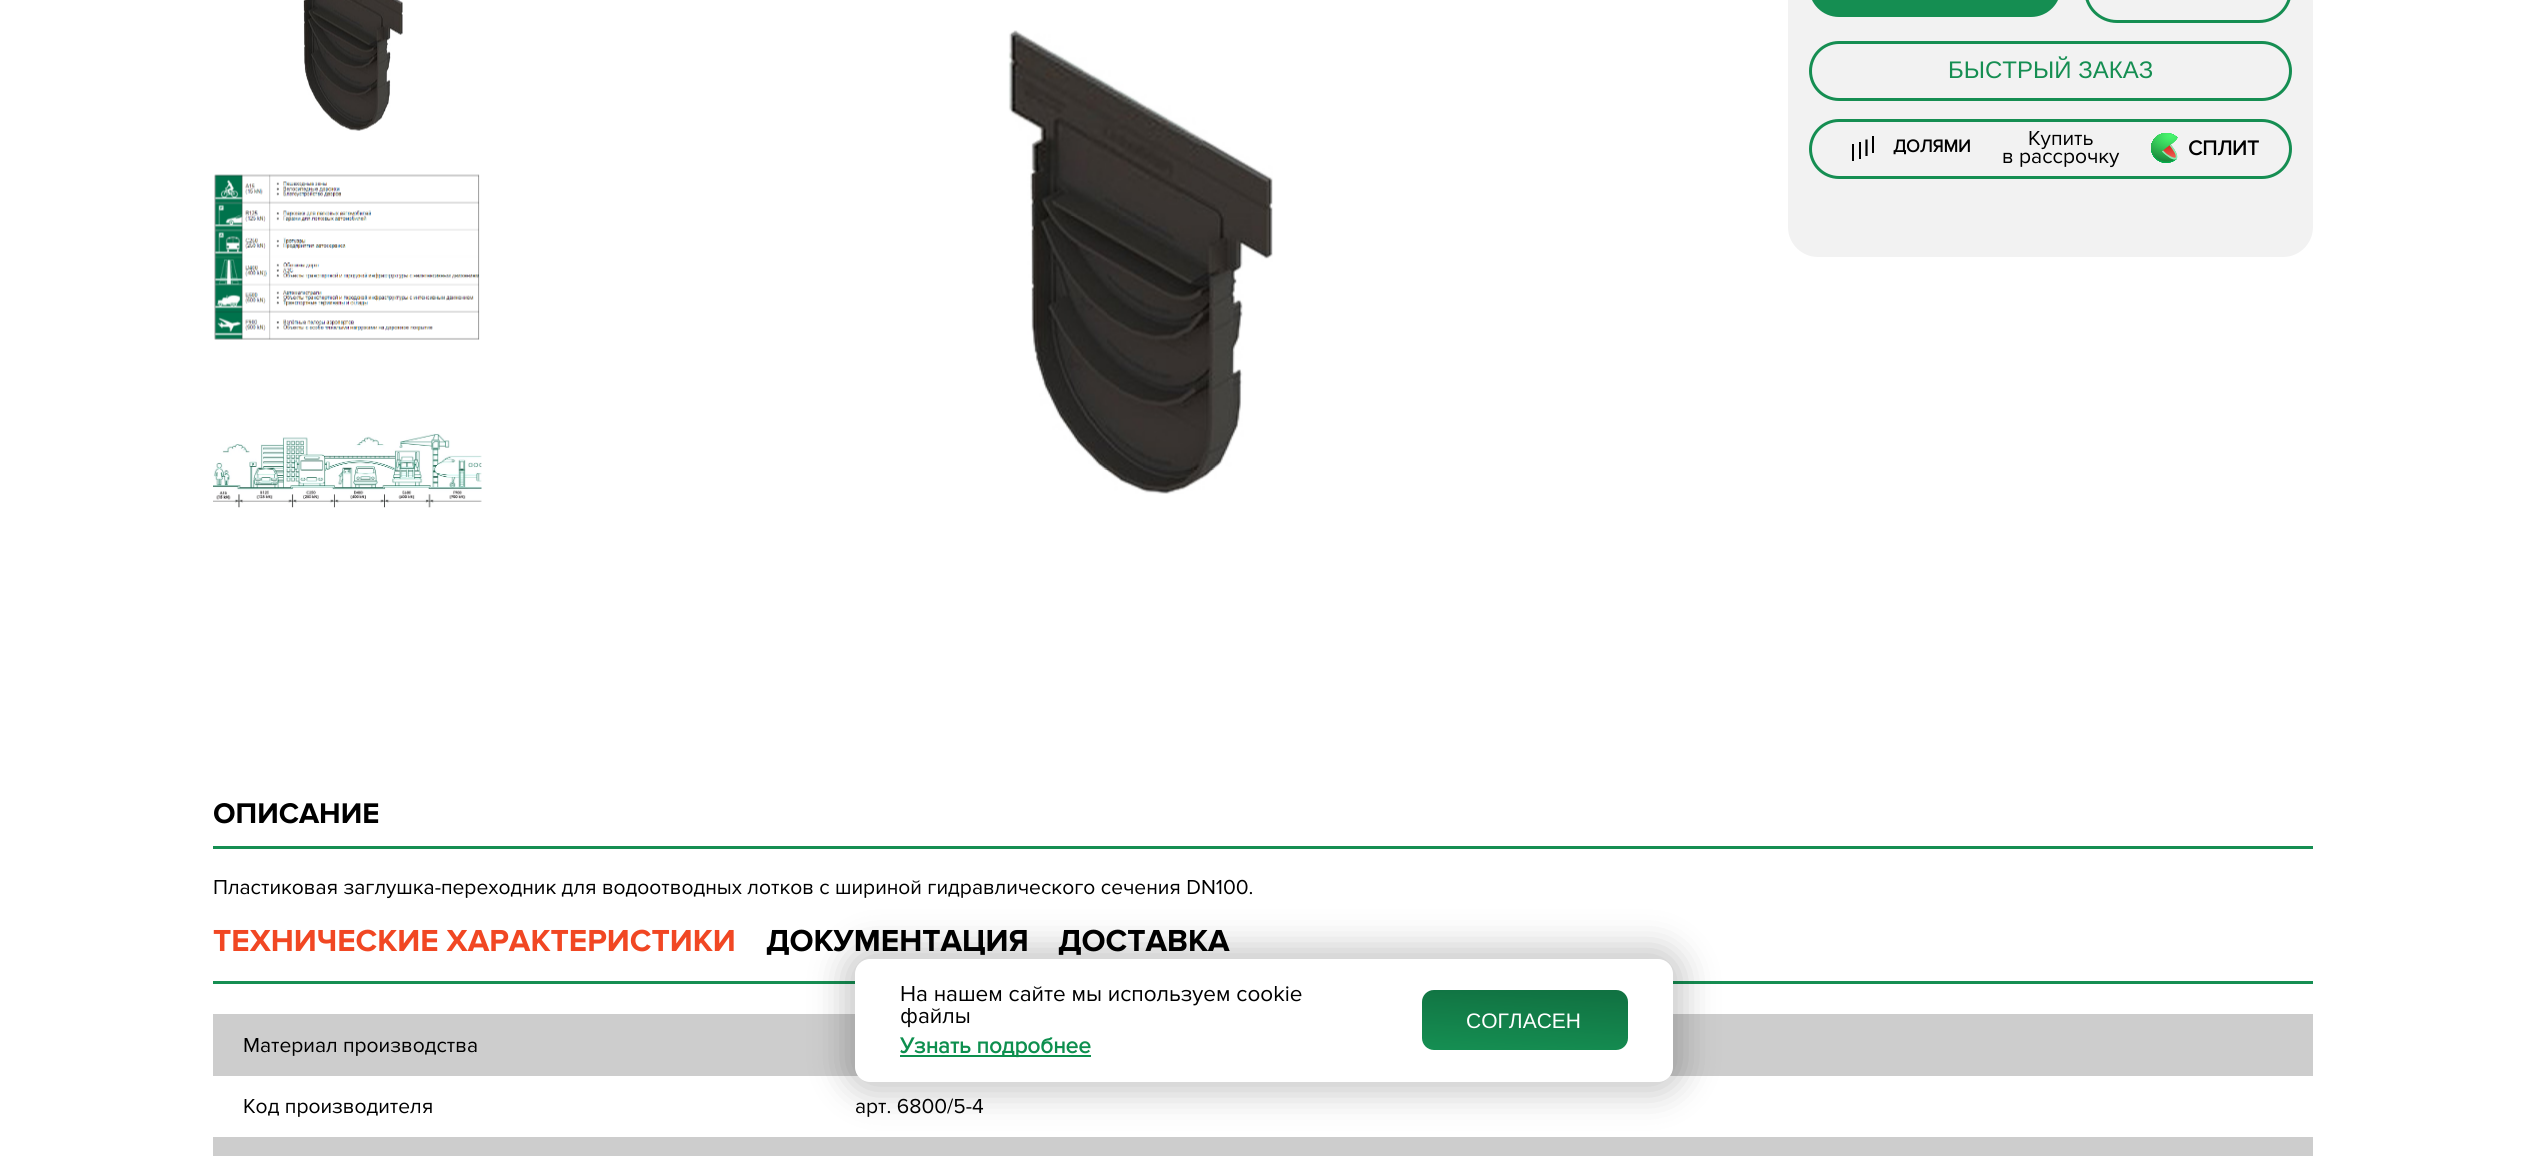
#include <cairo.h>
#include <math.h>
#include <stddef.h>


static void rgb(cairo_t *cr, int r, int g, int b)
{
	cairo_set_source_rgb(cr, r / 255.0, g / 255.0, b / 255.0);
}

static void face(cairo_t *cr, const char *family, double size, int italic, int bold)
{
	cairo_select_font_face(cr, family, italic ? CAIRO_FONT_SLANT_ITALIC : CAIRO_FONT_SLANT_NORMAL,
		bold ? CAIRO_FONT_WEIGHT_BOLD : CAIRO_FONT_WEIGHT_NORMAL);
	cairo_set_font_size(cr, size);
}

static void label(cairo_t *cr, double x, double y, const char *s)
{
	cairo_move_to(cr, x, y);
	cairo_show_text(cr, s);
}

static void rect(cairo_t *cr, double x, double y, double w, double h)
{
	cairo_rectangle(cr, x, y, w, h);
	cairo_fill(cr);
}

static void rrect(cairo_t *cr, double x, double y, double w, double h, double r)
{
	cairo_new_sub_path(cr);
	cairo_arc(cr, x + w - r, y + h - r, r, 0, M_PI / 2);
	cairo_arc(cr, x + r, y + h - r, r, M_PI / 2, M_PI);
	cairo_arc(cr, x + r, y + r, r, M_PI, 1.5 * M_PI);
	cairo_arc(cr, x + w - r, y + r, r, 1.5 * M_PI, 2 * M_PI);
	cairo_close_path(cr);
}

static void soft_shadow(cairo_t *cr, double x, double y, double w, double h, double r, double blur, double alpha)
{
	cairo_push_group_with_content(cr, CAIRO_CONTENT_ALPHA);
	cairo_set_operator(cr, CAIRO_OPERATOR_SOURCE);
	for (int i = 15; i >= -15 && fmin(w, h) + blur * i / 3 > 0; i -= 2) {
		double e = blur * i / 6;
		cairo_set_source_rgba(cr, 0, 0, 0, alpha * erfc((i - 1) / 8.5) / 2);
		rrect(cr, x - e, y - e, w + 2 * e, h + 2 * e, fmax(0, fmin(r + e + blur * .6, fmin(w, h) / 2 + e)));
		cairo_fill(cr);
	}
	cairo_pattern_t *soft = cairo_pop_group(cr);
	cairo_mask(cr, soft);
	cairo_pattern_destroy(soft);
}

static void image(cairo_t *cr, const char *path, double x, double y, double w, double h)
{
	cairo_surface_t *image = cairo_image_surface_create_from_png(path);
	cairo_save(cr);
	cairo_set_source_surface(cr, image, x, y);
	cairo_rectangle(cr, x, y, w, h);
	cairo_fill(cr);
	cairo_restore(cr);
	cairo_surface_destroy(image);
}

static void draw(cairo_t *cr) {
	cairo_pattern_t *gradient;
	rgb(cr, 255, 255, 255);
	cairo_paint(cr);
	image(cr, "image0.png", 303, 0, 100, 131);
	image(cr, "image1.png", 214, 174, 266, 166);
	image(cr, "image2.png", 213, 433, 269, 75);
	image(cr, "image3.png", 1008, 30, 265, 464);
	rgb(cr, 242, 242, 242);
	rrect(cr, 1788, -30, 525, 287, 30);
	cairo_fill(cr);
	rgb(cr, 21, 142, 82);
	rrect(cr, 1809, -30, 252, 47, 30);
	cairo_fill(cr);
	rrect(cr, 2085.5, -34.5, 205, 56, 31.5);
	cairo_set_line_width(cr, 3);
	cairo_stroke(cr);
	rrect(cr, 1810.5, 42.5, 480, 57, 28.5);
	cairo_stroke(cr);
	face(cr, "Liberation Sans", 24, 0, 0);
	label(cr, 1948, 78, "БЫСТРЫЙ ЗАКАЗ");
	rrect(cr, 1810.5, 120.5, 480, 57, 28.5);
	cairo_stroke(cr);
	rgb(cr, 0, 0, 0);
	rect(cr, 1852, 144, 2, 17);
	rect(cr, 1859, 142, 2, 17);
	cairo_new_path(cr);
	cairo_move_to(cr, 1866.5, 139.5);
	cairo_line_to(cr, 1866.5, 156);
	cairo_set_line_width(cr, 2.2);
	cairo_stroke(cr);
	rect(cr, 1872, 136, 2, 17);
	face(cr, "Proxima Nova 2", 18, 0, 1);
	label(cr, 1893, 152, "ДОЛЯМИ");
	face(cr, "Proxima Nova", 21, 0, 0);
	label(cr, 2028, 145, "Купить");
	label(cr, 2002, 163, "в рассрочку");
	image(cr, "image4.png", 2151, 133, 27, 30);
	face(cr, "Proxima Nova 2", 21, 0, 1);
	label(cr, 2188, 155, "СПЛИТ");
	rgb(cr, 21, 142, 82);
	rect(cr, 213, 846, 2100, 3);
	face(cr, "Proxima Nova", 29.5, 0, 1);
	rgb(cr, 0, 0, 0);
	label(cr, 213, 823, "ОПИСАНИЕ");
	face(cr, "Proxima Nova", 21, 0, 0);
	label(cr, 213, 894, "Пластиковая заглушка-переходник для водоотводных лотков с шириной гидравлического сечения DN100.");
	rgb(cr, 21, 142, 82);
	rect(cr, 213, 981, 2100, 3);
	face(cr, "Proxima Nova", 31.5, 0, 1);
	rgb(cr, 241, 71, 35);
	label(cr, 213, 951, "ТЕХНИЧЕСКИЕ ХАРАКТЕРИСТИКИ");
	rgb(cr, 0, 0, 0);
	label(cr, 766, 951, "ДОКУМЕНТАЦИЯ");
	label(cr, 1058, 951, "ДОСТАВКА");
	rgb(cr, 205, 205, 205);
	rect(cr, 213, 1014, 2100, 62);
	face(cr, "Proxima Nova", 21, 0, 0);
	rgb(cr, 0, 0, 0);
	label(cr, 243, 1052, "Материал производства");
	label(cr, 243, 1113, "Код производителя");
	label(cr, 855, 1113, "арт. 6800/5-4");
	rgb(cr, 205, 205, 205);
	rect(cr, 213, 1137, 2100, 19);
	rgb(cr, 0, 0, 0);
	soft_shadow(cr, 842, 945, 844, 150, 29, 16.5, 0.2);
	rgb(cr, 255, 255, 255);
	rrect(cr, 855, 959, 818, 123, 15);
	cairo_fill(cr);
	face(cr, "Proxima Nova", 22.5, 0, 0);
	rgb(cr, 0, 0, 0);
	label(cr, 900, 1001, "На нашем сайте мы используем cookie");
	label(cr, 900, 1023, "файлы");
	rgb(cr, 13, 143, 78);
	rect(cr, 900, 1055, 191, 2);
	face(cr, "Proxima Nova 2", 22.5, 0, 1);
	label(cr, 900, 1053, "Узнать подробнее");
	rgb(cr, 21, 142, 82);
	rrect(cr, 1422, 990, 206, 60, 12);
	cairo_fill(cr);
	gradient = cairo_pattern_create_linear(1526, 985, 1522, 1055);
	cairo_pattern_add_color_stop_rgba(gradient, 0.03, 0, 0, 0, 0.2);
	cairo_pattern_add_color_stop_rgba(gradient, 0.97, 0, 0, 0, 0);
	cairo_set_source(cr, gradient);
	cairo_pattern_destroy(gradient);
	rrect(cr, 1422, 990, 206, 60, 12);
	cairo_fill(cr);
	face(cr, "Liberation Sans", 21, 0, 0);
	rgb(cr, 255, 255, 255);
	label(cr, 1466, 1028, "СОГЛАСЕН");
}

int main(void) {
	cairo_surface_t *surface = cairo_image_surface_create(CAIRO_FORMAT_RGB24, 2525, 1156);
	cairo_t *cr = cairo_create(surface);
	cairo_font_options_t *options = cairo_font_options_create();
	cairo_font_options_set_hint_metrics(options, CAIRO_HINT_METRICS_OFF);
	cairo_font_options_set_hint_style(options, CAIRO_HINT_STYLE_NONE);
	cairo_set_font_options(cr, options);
	cairo_set_miter_limit(cr, 4);
	draw(cr);
	cairo_surface_write_to_png(surface, "render.png");
	cairo_font_options_destroy(options);
	cairo_destroy(cr);
	cairo_surface_destroy(surface);
	return 0;
}
